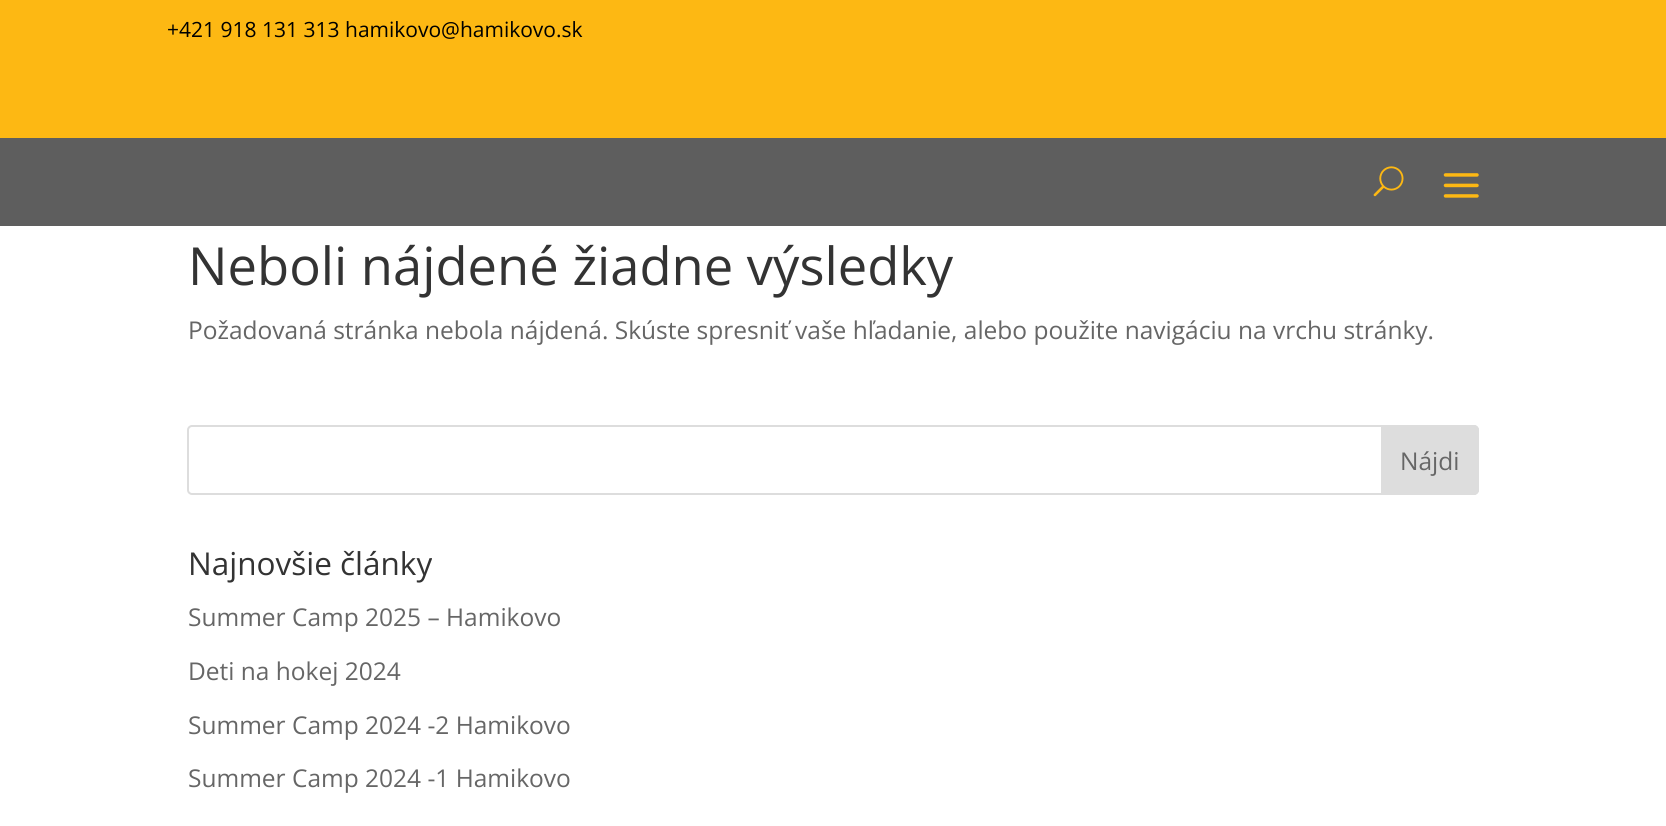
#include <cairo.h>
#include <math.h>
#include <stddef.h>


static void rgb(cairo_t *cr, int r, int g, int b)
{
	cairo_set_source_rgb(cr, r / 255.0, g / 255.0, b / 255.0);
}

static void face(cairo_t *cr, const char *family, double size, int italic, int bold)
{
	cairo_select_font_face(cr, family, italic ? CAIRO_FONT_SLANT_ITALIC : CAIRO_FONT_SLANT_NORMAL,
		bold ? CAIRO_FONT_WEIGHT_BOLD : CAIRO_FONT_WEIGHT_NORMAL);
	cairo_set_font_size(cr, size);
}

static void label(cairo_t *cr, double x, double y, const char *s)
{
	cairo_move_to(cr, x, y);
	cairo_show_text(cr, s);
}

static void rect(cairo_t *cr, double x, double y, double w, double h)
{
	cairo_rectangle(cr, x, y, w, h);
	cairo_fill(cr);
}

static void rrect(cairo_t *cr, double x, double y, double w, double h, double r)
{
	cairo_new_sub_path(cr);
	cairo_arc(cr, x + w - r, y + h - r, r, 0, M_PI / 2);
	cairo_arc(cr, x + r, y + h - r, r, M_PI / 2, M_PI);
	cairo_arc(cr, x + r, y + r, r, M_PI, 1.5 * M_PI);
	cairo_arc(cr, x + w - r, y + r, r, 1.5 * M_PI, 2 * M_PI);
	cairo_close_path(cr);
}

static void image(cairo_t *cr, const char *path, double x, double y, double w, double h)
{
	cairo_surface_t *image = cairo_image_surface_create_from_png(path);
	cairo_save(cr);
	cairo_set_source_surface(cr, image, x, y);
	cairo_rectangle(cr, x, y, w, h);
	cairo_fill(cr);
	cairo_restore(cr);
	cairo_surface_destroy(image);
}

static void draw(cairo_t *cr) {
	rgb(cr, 253, 184, 19);
	cairo_paint(cr);
	face(cr, "Open Sans", 21, 0, 0);
	rgb(cr, 0, 0, 0);
	label(cr, 167, 37, "+421 918 131 313");
	label(cr, 345, 37, "hamikovo@hamikovo.sk");
	rgb(cr, 94, 94, 94);
	rect(cr, 0, 138, 1666, 88);
	image(cr, "image0.png", 1373, 166, 31, 31);
	image(cr, "image1.png", 1443, 173, 36, 25);
	rgb(cr, 255, 255, 255);
	rect(cr, 0, 226, 1666, 600);
	face(cr, "Open Sans", 52.5, 0, 0);
	rgb(cr, 51, 51, 51);
	label(cr, 188, 285, "Neboli nájdené žiadne výsledky");
	face(cr, "Open Sans", 24.5, 0, 0);
	rgb(cr, 102, 102, 102);
	label(cr, 188, 339, "Požadovaná stránka nebola nájdená. Skúste spresniť vaše hľadanie, alebo použite navigáciu na vrchu stránky.");
	rrect(cr, 188, 426, 1290, 68, 4);
	rgb(cr, 221, 221, 221);
	cairo_stroke(cr);
	cairo_new_path(cr);
	cairo_move_to(cr, 1382, 426);
	cairo_line_to(cr, 1474, 426);
	cairo_curve_to(cr, 1476, 426, 1478, 428, 1478, 430);
	cairo_line_to(cr, 1478, 490);
	cairo_curve_to(cr, 1478, 492, 1476, 494, 1474, 494);
	cairo_line_to(cr, 1382, 494);
	cairo_close_path(cr);
	cairo_fill_preserve(cr);
	cairo_stroke(cr);
	rgb(cr, 102, 102, 102);
	label(cr, 1400, 470, "Nájdi");
	face(cr, "Open Sans", 31.5, 0, 0);
	rgb(cr, 51, 51, 51);
	label(cr, 188, 575, "Najnovšie články");
	face(cr, "Open Sans", 24.5, 0, 0);
	rgb(cr, 102, 102, 102);
	label(cr, 188, 626, "Summer Camp 2025 – Hamikovo");
	label(cr, 188, 680, "Deti na hokej 2024");
	label(cr, 188, 734, "Summer Camp 2024 -2 Hamikovo");
	label(cr, 188, 787, "Summer Camp 2024 -1 Hamikovo");
}

int main(void) {
	cairo_surface_t *surface = cairo_image_surface_create(CAIRO_FORMAT_RGB24, 1666, 826);
	cairo_t *cr = cairo_create(surface);
	cairo_font_options_t *options = cairo_font_options_create();
	cairo_font_options_set_hint_metrics(options, CAIRO_HINT_METRICS_OFF);
	cairo_font_options_set_hint_style(options, CAIRO_HINT_STYLE_NONE);
	cairo_set_font_options(cr, options);
	cairo_set_miter_limit(cr, 4);
	draw(cr);
	cairo_surface_write_to_png(surface, "render.png");
	cairo_font_options_destroy(options);
	cairo_destroy(cr);
	cairo_surface_destroy(surface);
	return 0;
}
